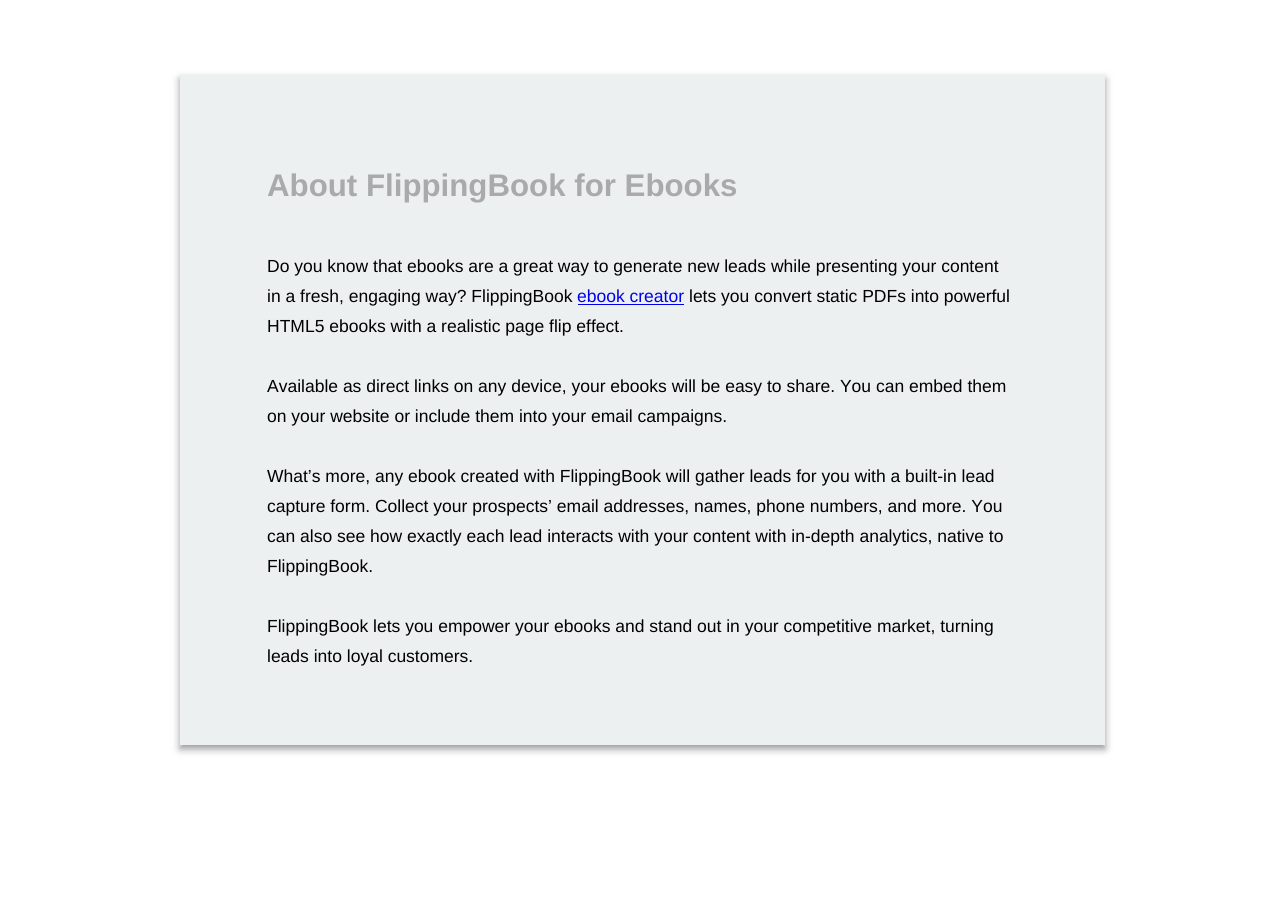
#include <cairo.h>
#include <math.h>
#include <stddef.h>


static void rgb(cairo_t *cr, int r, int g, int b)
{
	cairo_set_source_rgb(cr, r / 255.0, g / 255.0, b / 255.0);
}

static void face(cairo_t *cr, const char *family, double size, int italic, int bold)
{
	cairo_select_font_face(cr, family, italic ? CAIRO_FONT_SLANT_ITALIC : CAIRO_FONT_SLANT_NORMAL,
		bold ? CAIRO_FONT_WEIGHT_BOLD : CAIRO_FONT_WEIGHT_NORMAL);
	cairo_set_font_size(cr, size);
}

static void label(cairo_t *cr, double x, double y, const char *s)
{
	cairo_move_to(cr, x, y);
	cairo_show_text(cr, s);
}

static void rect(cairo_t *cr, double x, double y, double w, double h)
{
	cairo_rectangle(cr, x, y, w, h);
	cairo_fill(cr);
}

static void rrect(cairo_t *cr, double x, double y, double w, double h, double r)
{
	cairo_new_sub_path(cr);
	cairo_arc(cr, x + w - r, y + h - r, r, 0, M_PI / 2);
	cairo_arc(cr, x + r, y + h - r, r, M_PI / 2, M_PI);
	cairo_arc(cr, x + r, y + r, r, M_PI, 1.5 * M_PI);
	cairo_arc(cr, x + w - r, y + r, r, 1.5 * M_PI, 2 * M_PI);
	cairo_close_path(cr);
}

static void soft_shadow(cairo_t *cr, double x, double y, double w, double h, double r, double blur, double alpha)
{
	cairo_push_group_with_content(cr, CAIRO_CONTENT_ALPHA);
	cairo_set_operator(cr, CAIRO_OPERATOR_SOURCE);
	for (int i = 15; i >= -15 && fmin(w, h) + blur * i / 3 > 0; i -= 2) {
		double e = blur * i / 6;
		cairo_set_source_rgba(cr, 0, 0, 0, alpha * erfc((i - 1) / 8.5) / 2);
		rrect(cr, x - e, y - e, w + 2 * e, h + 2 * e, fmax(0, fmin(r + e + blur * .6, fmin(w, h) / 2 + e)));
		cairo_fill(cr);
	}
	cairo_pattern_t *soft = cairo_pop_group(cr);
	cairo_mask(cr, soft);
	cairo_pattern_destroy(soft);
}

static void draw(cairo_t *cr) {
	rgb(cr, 255, 255, 255);
	cairo_paint(cr);
	rgb(cr, 0, 0, 0);
	soft_shadow(cr, 180, 79, 925, 670, 0, 4, 0.4);
	rgb(cr, 236, 240, 241);
	rect(cr, 180, 75, 925, 670);
	face(cr, "Liberation Sans", 31.25, 0, 1);
	rgb(cr, 170, 170, 170);
	label(cr, 267, 196, "About FlippingBook for Ebooks");
	face(cr, "Liberation Sans", 17.5, 0, 0);
	rgb(cr, 0, 0, 0);
	label(cr, 267, 272, "Do you know that ebooks are a great way to generate new leads while presenting your content");
	label(cr, 267, 302, "in a fresh, engaging way? FlippingBook");
	rgb(cr, 0, 0, 238);
	label(cr, 577, 302, "ebook creator");
	rect(cr, 578, 304, 106, 1);
	rgb(cr, 0, 0, 0);
	label(cr, 689, 302, "lets you convert static PDFs into powerful");
	label(cr, 267, 332, "HTML5 ebooks with a realistic page flip effect.");
	label(cr, 267, 392, "Available as direct links on any device, your ebooks will be easy to share. You can embed them");
	label(cr, 267, 422, "on your website or include them into your email campaigns.");
	label(cr, 267, 482, "What’s more, any ebook created with FlippingBook will gather leads for you with a built-in lead");
	label(cr, 267, 512, "capture form. Collect your prospects’ email addresses, names, phone numbers, and more. You");
	label(cr, 267, 542, "can also see how exactly each lead interacts with your content with in-depth analytics, native to");
	label(cr, 267, 572, "FlippingBook.");
	label(cr, 267, 632, "FlippingBook lets you empower your ebooks and stand out in your competitive market, turning");
	label(cr, 267, 662, "leads into loyal customers.");
}

int main(void) {
	cairo_surface_t *surface = cairo_image_surface_create(CAIRO_FORMAT_RGB24, 1283, 921);
	cairo_t *cr = cairo_create(surface);
	cairo_font_options_t *options = cairo_font_options_create();
	cairo_font_options_set_hint_metrics(options, CAIRO_HINT_METRICS_OFF);
	cairo_font_options_set_hint_style(options, CAIRO_HINT_STYLE_NONE);
	cairo_set_font_options(cr, options);
	cairo_set_miter_limit(cr, 4);
	draw(cr);
	cairo_surface_write_to_png(surface, "render.png");
	cairo_font_options_destroy(options);
	cairo_destroy(cr);
	cairo_surface_destroy(surface);
	return 0;
}
